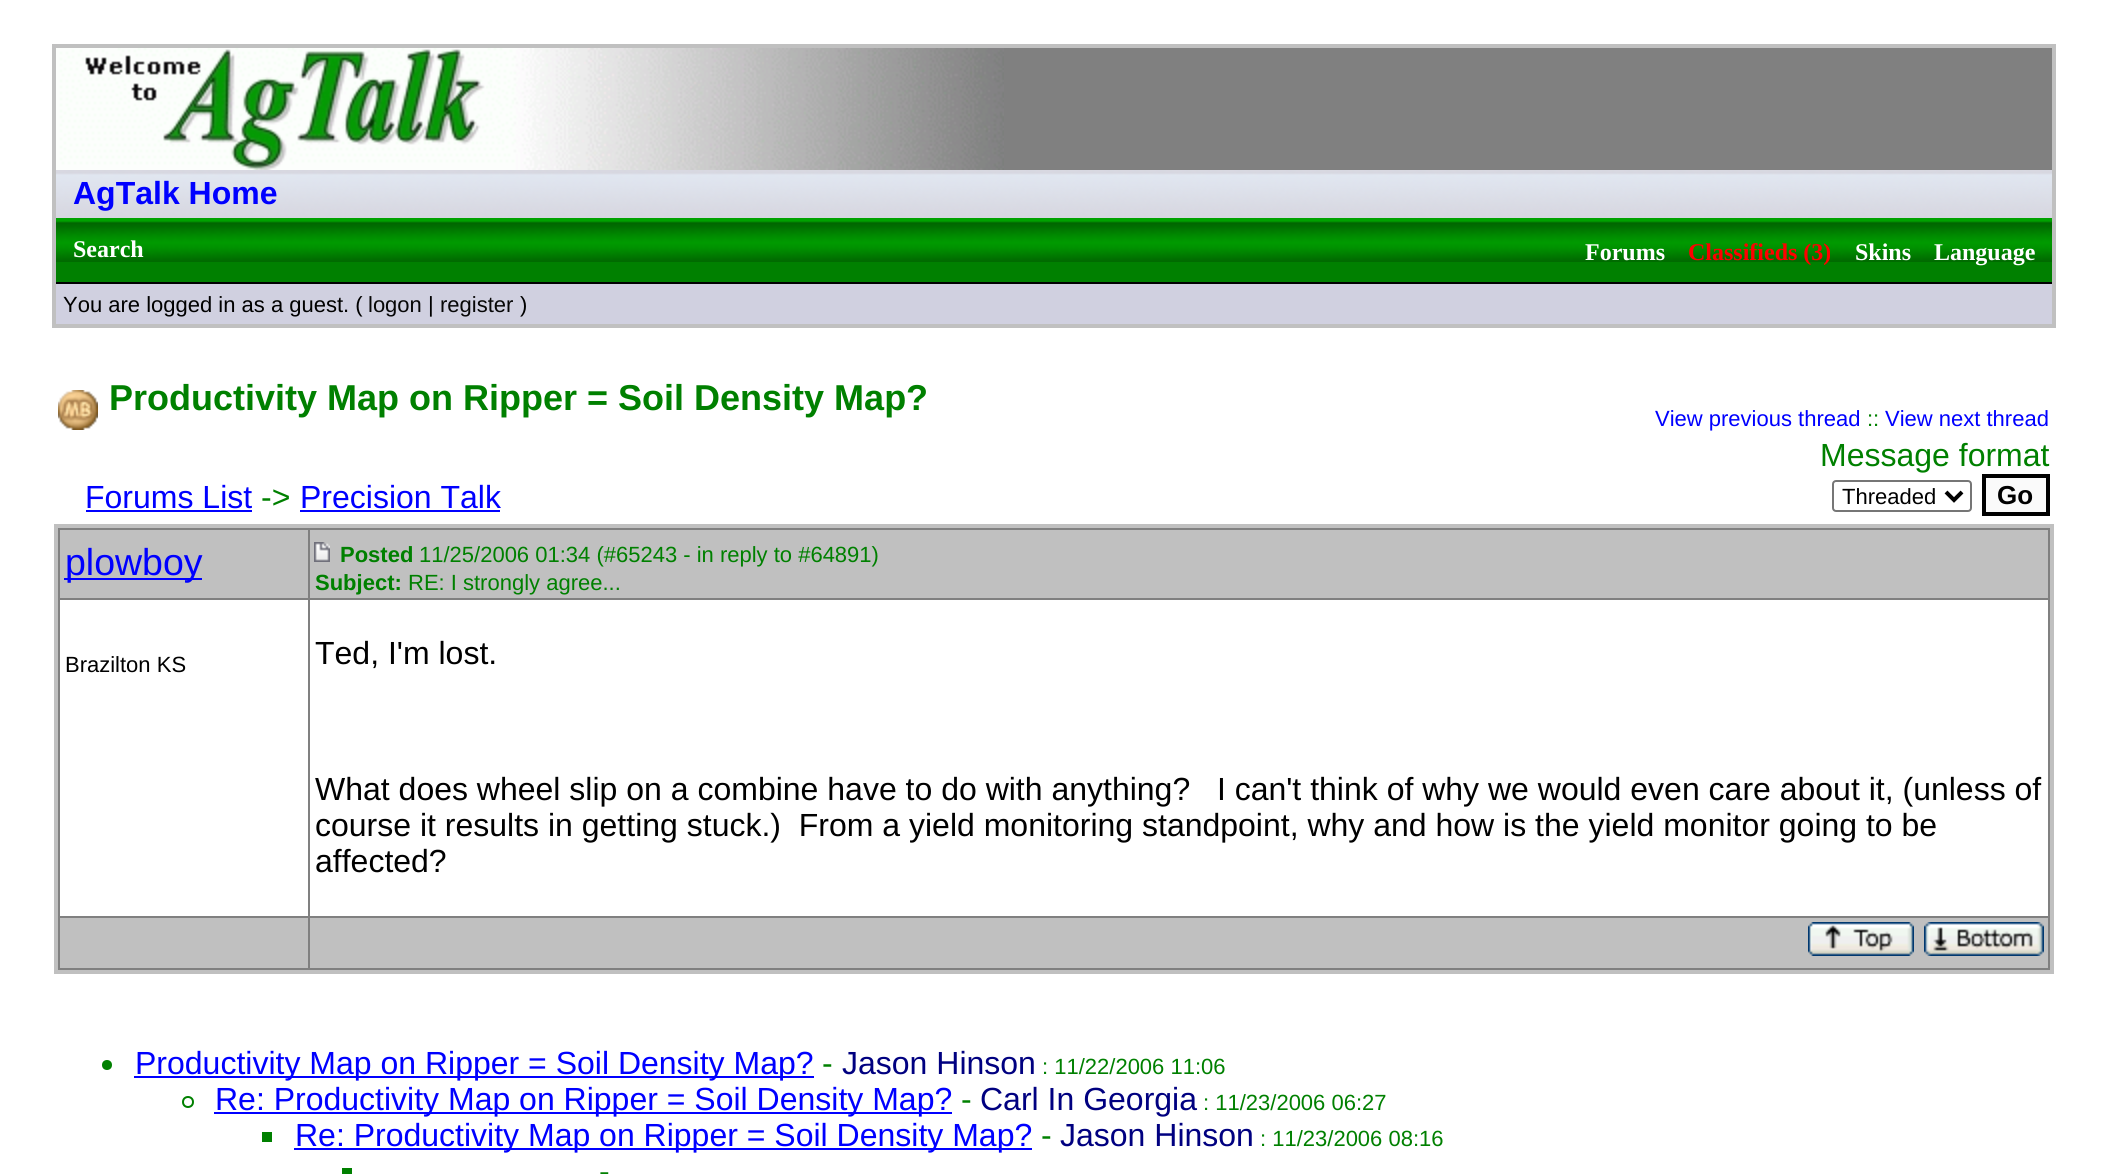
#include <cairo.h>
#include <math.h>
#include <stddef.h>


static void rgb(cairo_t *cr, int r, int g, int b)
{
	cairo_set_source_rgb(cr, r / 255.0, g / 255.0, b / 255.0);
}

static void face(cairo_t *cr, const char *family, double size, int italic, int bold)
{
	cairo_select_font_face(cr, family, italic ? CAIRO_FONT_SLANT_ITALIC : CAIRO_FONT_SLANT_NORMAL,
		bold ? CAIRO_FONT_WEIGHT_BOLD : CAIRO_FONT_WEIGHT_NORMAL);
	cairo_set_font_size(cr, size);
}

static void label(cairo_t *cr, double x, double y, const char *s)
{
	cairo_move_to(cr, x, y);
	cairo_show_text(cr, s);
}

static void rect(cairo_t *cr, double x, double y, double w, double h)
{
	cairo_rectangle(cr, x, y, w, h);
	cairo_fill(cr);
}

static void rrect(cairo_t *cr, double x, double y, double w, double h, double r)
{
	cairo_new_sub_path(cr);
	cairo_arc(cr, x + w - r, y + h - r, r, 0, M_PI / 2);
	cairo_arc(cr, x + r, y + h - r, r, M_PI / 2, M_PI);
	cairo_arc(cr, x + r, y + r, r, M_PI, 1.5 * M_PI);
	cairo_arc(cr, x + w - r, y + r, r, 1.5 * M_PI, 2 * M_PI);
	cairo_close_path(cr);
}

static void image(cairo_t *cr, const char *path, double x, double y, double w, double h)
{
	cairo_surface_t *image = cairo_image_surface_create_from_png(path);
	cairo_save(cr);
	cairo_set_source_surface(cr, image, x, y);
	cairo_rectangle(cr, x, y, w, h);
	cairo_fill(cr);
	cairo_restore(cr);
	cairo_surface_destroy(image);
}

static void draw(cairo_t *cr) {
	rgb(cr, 255, 255, 255);
	cairo_paint(cr);
	rgb(cr, 128, 128, 128);
	rect(cr, 1004, 48, 1048, 122);
	cairo_rectangle(cr, 54, 46, 2000, 280);
	rgb(cr, 192, 192, 192);
	cairo_set_line_width(cr, 4);
	cairo_stroke(cr);
	image(cr, "image0.png", 56, 48, 948, 122);
	image(cr, "image1.png", 56, 170, 1996, 48);
	face(cr, "Liberation Sans", 32, 0, 1);
	rgb(cr, 0, 0, 255);
	label(cr, 73, 204, "AgTalk Home");
	rgb(cr, 0, 128, 0);
	rect(cr, 56, 262, 1996, 20);
	image(cr, "image2.png", 56, 218, 1996, 44);
	face(cr, "Liberation Serif", 24, 0, 1);
	rgb(cr, 255, 255, 255);
	label(cr, 73, 257, "Search");
	label(cr, 1585, 260, "Forums");
	rgb(cr, 255, 0, 0);
	label(cr, 1688, 260, "Classifieds (3)");
	rgb(cr, 255, 255, 255);
	label(cr, 1855, 260, "Skins");
	label(cr, 1934, 260, "Language");
	rgb(cr, 208, 208, 224);
	rect(cr, 56, 284, 1996, 40);
	rgb(cr, 0, 0, 0);
	rect(cr, 56, 282, 1996, 2);
	face(cr, "Liberation Sans", 22, 0, 0);
	label(cr, 63, 312, "You are logged in as a guest. (");
	rgb(cr, 7, 7, 7);
	label(cr, 368, 312, "logon");
	rgb(cr, 0, 0, 0);
	label(cr, 428, 312, "|");
	rgb(cr, 7, 7, 7);
	label(cr, 440, 312, "register");
	rgb(cr, 0, 0, 0);
	label(cr, 520, 312, ")");
	image(cr, "image3.png", 58, 390, 40, 40);
	face(cr, "Liberation Sans", 36, 0, 1);
	rgb(cr, 0, 128, 0);
	label(cr, 109, 410, "Productivity Map on Ripper = Soil Density Map?");
	face(cr, "Liberation Sans", 22, 0, 0);
	rgb(cr, 0, 0, 255);
	label(cr, 1655, 426, "View previous thread");
	rgb(cr, 0, 128, 0);
	label(cr, 1867, 426, "::");
	rgb(cr, 0, 0, 255);
	label(cr, 1885, 426, "View next thread");
	face(cr, "Liberation Sans", 32, 0, 0);
	label(cr, 85, 508, "Forums List");
	rect(cr, 86, 510, 166, 2);
	rgb(cr, 0, 128, 0);
	label(cr, 261, 508, "->");
	rgb(cr, 0, 0, 255);
	label(cr, 300, 508, "Precision Talk");
	rect(cr, 300, 510, 200, 2);
	rgb(cr, 0, 128, 0);
	label(cr, 1820, 466, "Message format");
	rrect(cr, 1833, 481, 138, 30, 3);
	rgb(cr, 118, 118, 118);
	cairo_set_line_width(cr, 2);
	cairo_stroke(cr);
	cairo_new_path(cr);
	cairo_move_to(cr, 1946, 492);
	cairo_line_to(cr, 1954, 500);
	cairo_line_to(cr, 1962, 492);
	rgb(cr, 0, 0, 0);
	cairo_set_line_width(cr, 4);
	cairo_stroke(cr);
	face(cr, "Liberation Sans", 22, 0, 0);
	label(cr, 1842, 504, "Threaded");
	rgb(cr, 250, 250, 250);
	cairo_rectangle(cr, 1984, 476, 64, 38);
	cairo_fill_preserve(cr);
	rgb(cr, 0, 0, 0);
	cairo_stroke(cr);
	face(cr, "Liberation Sans", 26, 0, 1);
	label(cr, 1997, 504, "Go");
	rgb(cr, 128, 128, 128);
	cairo_rectangle(cr, 56, 526, 1996, 446);
	cairo_fill_preserve(cr);
	rgb(cr, 192, 192, 192);
	cairo_stroke(cr);
	rect(cr, 60, 530, 248, 68);
	rgb(cr, 0, 0, 255);
	rect(cr, 64, 578, 138, 2);
	face(cr, "Liberation Sans", 37.5, 0, 0);
	label(cr, 65, 575, "plowboy");
	rgb(cr, 192, 192, 192);
	rect(cr, 310, 530, 1738, 68);
	image(cr, "image4.png", 314, 542, 16, 20);
	face(cr, "Liberation Sans", 22, 0, 1);
	rgb(cr, 0, 128, 0);
	label(cr, 340, 562, "Posted");
	face(cr, "Liberation Sans", 22, 0, 0);
	label(cr, 419, 562, "11/25/2006 01:34 (#65243 - in reply to #64891)");
	face(cr, "Liberation Sans", 22, 0, 1);
	label(cr, 315, 590, "Subject:");
	face(cr, "Liberation Sans", 22, 0, 0);
	label(cr, 408, 590, "RE: I strongly agree...");
	rgb(cr, 255, 255, 255);
	rect(cr, 60, 600, 248, 316);
	rgb(cr, 0, 0, 0);
	label(cr, 65, 672, "Brazilton KS");
	rgb(cr, 255, 255, 255);
	rect(cr, 310, 600, 1738, 316);
	face(cr, "Liberation Sans", 32, 0, 0);
	rgb(cr, 0, 0, 0);
	label(cr, 315, 664, "Ted, I'm lost.");
	label(cr, 315, 800, "What does wheel slip on a combine have to do with anything?   I can't think of why we would even care about it, (unless of");
	label(cr, 315, 836, "course it results in getting stuck.)  From a yield monitoring standpoint, why and how is the yield monitor going to be");
	label(cr, 315, 872, "affected?");
	rgb(cr, 192, 192, 192);
	rect(cr, 60, 918, 248, 50);
	rect(cr, 310, 918, 1738, 50);
	image(cr, "image5.png", 1808, 922, 106, 34);
	image(cr, "image6.png", 1924, 922, 120, 34);
	rgb(cr, 0, 128, 0);
	cairo_arc(cr, 107, 1065, 5, 0, 2 * M_PI);
	cairo_fill(cr);
	rgb(cr, 0, 0, 255);
	rect(cr, 134, 1076, 680, 2);
	label(cr, 135, 1074, "Productivity Map on Ripper = Soil Density Map?");
	rgb(cr, 0, 128, 0);
	label(cr, 822, 1074, "-");
	rgb(cr, 0, 0, 128);
	label(cr, 842, 1074, "Jason Hinson");
	face(cr, "Liberation Sans", 22, 0, 0);
	rgb(cr, 0, 128, 0);
	label(cr, 1042, 1074, ": 11/22/2006 11:06");
	cairo_new_path(cr);
	cairo_arc(cr, 188, 1102, 5, 0, 2 * M_PI);
	cairo_set_line_width(cr, 2);
	cairo_stroke(cr);
	rgb(cr, 0, 0, 255);
	rect(cr, 214, 1112, 738, 2);
	face(cr, "Liberation Sans", 32, 0, 0);
	label(cr, 215, 1110, "Re: Productivity Map on Ripper = Soil Density Map?");
	rgb(cr, 0, 128, 0);
	label(cr, 961, 1110, "-");
	rgb(cr, 0, 0, 128);
	label(cr, 980, 1110, "Carl In Georgia");
	face(cr, "Liberation Sans", 22, 0, 0);
	rgb(cr, 0, 128, 0);
	label(cr, 1203, 1110, ": 11/23/2006 06:27");
	rect(cr, 262, 1132, 10, 10);
	rgb(cr, 0, 0, 255);
	rect(cr, 294, 1148, 738, 2);
	face(cr, "Liberation Sans", 32, 0, 0);
	label(cr, 295, 1146, "Re: Productivity Map on Ripper = Soil Density Map?");
	rgb(cr, 0, 128, 0);
	label(cr, 1041, 1146, "-");
	rgb(cr, 0, 0, 128);
	label(cr, 1060, 1146, "Jason Hinson");
	face(cr, "Liberation Sans", 22, 0, 0);
	rgb(cr, 0, 128, 0);
	label(cr, 1260, 1146, ": 11/23/2006 08:16");
	rect(cr, 342, 1168, 10, 6);
	face(cr, "Liberation Sans", 32, 0, 0);
	label(cr, 599, 1182, "-");
}

int main(void) {
	cairo_surface_t *surface = cairo_image_surface_create(CAIRO_FORMAT_RGB24, 2108, 1174);
	cairo_t *cr = cairo_create(surface);
	cairo_font_options_t *options = cairo_font_options_create();
	cairo_font_options_set_hint_metrics(options, CAIRO_HINT_METRICS_OFF);
	cairo_font_options_set_hint_style(options, CAIRO_HINT_STYLE_NONE);
	cairo_set_font_options(cr, options);
	cairo_set_miter_limit(cr, 4);
	draw(cr);
	cairo_surface_write_to_png(surface, "render.png");
	cairo_font_options_destroy(options);
	cairo_destroy(cr);
	cairo_surface_destroy(surface);
	return 0;
}
